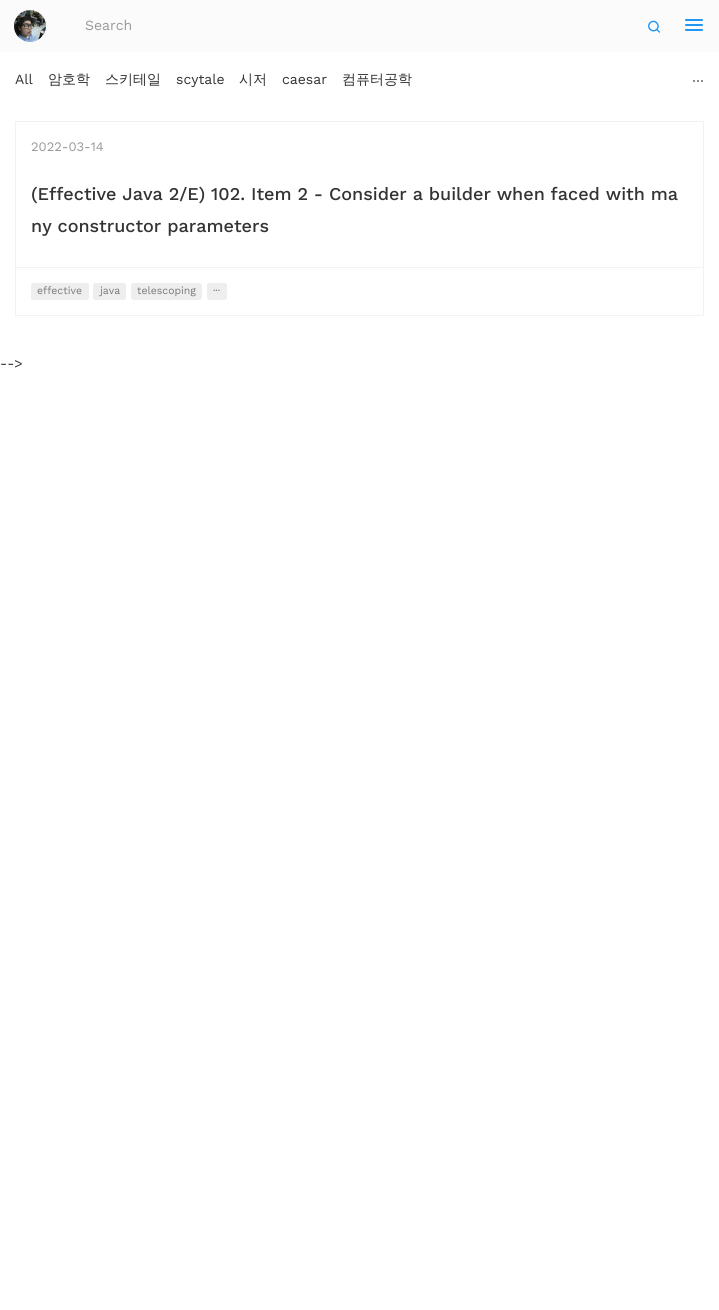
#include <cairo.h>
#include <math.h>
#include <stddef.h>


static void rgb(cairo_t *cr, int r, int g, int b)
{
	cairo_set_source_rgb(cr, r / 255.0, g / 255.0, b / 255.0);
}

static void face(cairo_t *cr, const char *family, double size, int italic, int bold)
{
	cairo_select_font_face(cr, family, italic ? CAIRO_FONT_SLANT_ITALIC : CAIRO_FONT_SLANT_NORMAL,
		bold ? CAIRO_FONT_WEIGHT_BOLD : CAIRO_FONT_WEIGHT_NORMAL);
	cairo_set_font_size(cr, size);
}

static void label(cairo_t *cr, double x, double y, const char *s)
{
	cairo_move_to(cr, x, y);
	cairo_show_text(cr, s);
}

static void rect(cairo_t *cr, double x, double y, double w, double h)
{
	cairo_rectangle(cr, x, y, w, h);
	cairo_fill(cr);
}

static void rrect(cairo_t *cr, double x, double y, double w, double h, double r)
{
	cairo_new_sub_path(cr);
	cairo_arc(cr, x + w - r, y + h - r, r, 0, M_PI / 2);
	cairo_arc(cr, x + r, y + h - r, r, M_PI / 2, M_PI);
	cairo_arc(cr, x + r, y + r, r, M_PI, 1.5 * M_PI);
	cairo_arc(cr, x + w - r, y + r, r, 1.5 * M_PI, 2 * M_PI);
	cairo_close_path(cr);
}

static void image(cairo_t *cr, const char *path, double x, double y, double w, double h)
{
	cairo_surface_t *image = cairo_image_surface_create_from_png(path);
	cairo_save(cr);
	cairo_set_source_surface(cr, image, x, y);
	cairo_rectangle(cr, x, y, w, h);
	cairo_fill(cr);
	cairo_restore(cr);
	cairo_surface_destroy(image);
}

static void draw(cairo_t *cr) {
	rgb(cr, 255, 255, 255);
	cairo_paint(cr);
	rgb(cr, 251, 251, 251);
	rect(cr, 0, 0, 719, 52);
	image(cr, "image0.png", 14, 10, 32, 32);
	face(cr, "Work Sans", 14, 0, 0);
	rgb(cr, 153, 153, 153);
	label(cr, 85, 30, "Search");
	image(cr, "image1.png", 648, 20, 12, 13);
	rgb(cr, 33, 150, 243);
	rrect(cr, 685, 19, 18, 2, 1);
	cairo_fill(cr);
	rrect(cr, 685, 24, 18, 2, 1);
	cairo_fill(cr);
	rrect(cr, 685, 29, 18, 2, 1);
	cairo_fill(cr);
	rgb(cr, 51, 51, 51);
	label(cr, 15, 84, "All");
	face(cr, "WenQuanYi Zen Hei Medium", 14, 0, 0);
	label(cr, 48, 84, "암호학");
	label(cr, 105, 84, "스키테일");
	face(cr, "Work Sans", 14, 0, 0);
	label(cr, 176, 84, "scytale");
	face(cr, "WenQuanYi Zen Hei Medium", 14, 0, 0);
	label(cr, 239, 84, "시저");
	face(cr, "Work Sans", 14, 0, 0);
	label(cr, 282, 84, "caesar");
	face(cr, "WenQuanYi Zen Hei Medium", 14, 0, 0);
	label(cr, 342, 84, "컴퓨터공학");
	rgb(cr, 102, 102, 102);
	cairo_new_path(cr);
	cairo_arc(cr, 694, 81, 1, 0, 2 * M_PI);
	cairo_fill(cr);
	cairo_arc(cr, 698, 81, 1, 0, 2 * M_PI);
	cairo_fill(cr);
	cairo_arc(cr, 702, 81, 1, 0, 2 * M_PI);
	cairo_fill(cr);
	cairo_rectangle(cr, 15.5, 121.5, 688, 194);
	rgb(cr, 242, 242, 242);
	cairo_set_line_width(cr, 1);
	cairo_stroke(cr);
	face(cr, "Work Sans", 13, 0, 0);
	rgb(cr, 153, 153, 153);
	label(cr, 31, 151, "2022-03-14");
	face(cr, "Work Sans Medium", 18, 0, 0);
	rgb(cr, 51, 51, 51);
	label(cr, 31, 200, "(Effective Java 2/E) 102. Item 2 - Consider a builder when faced with ma");
	label(cr, 31, 232, "ny constructor parameters");
	rgb(cr, 242, 242, 242);
	rect(cr, 16, 267, 687, 1);
	rgb(cr, 238, 238, 238);
	rrect(cr, 31, 283, 58, 17, 2.5);
	cairo_fill(cr);
	face(cr, "Work Sans", 10.5, 0, 0);
	rgb(cr, 119, 119, 119);
	label(cr, 37, 294, "effective");
	rgb(cr, 238, 238, 238);
	rrect(cr, 93, 283, 33, 17, 2.5);
	cairo_fill(cr);
	rgb(cr, 119, 119, 119);
	label(cr, 100, 294, "java");
	rgb(cr, 238, 238, 238);
	rrect(cr, 131, 283, 71, 17, 2.5);
	cairo_fill(cr);
	rgb(cr, 119, 119, 119);
	label(cr, 137, 294, "telescoping");
	rgb(cr, 238, 238, 238);
	rrect(cr, 207, 283, 20, 17, 2.5);
	cairo_fill(cr);
	rgb(cr, 119, 119, 119);
	label(cr, 213, 294, "···");
	face(cr, "Work Sans", 14, 0, 0);
	rgb(cr, 51, 51, 51);
	label(cr, 0, 368, "-->");
}

int main(void) {
	cairo_surface_t *surface = cairo_image_surface_create(CAIRO_FORMAT_RGB24, 719, 1310);
	cairo_t *cr = cairo_create(surface);
	cairo_font_options_t *options = cairo_font_options_create();
	cairo_font_options_set_hint_metrics(options, CAIRO_HINT_METRICS_OFF);
	cairo_font_options_set_hint_style(options, CAIRO_HINT_STYLE_NONE);
	cairo_set_font_options(cr, options);
	cairo_set_miter_limit(cr, 4);
	draw(cr);
	cairo_surface_write_to_png(surface, "render.png");
	cairo_font_options_destroy(options);
	cairo_destroy(cr);
	cairo_surface_destroy(surface);
	return 0;
}
